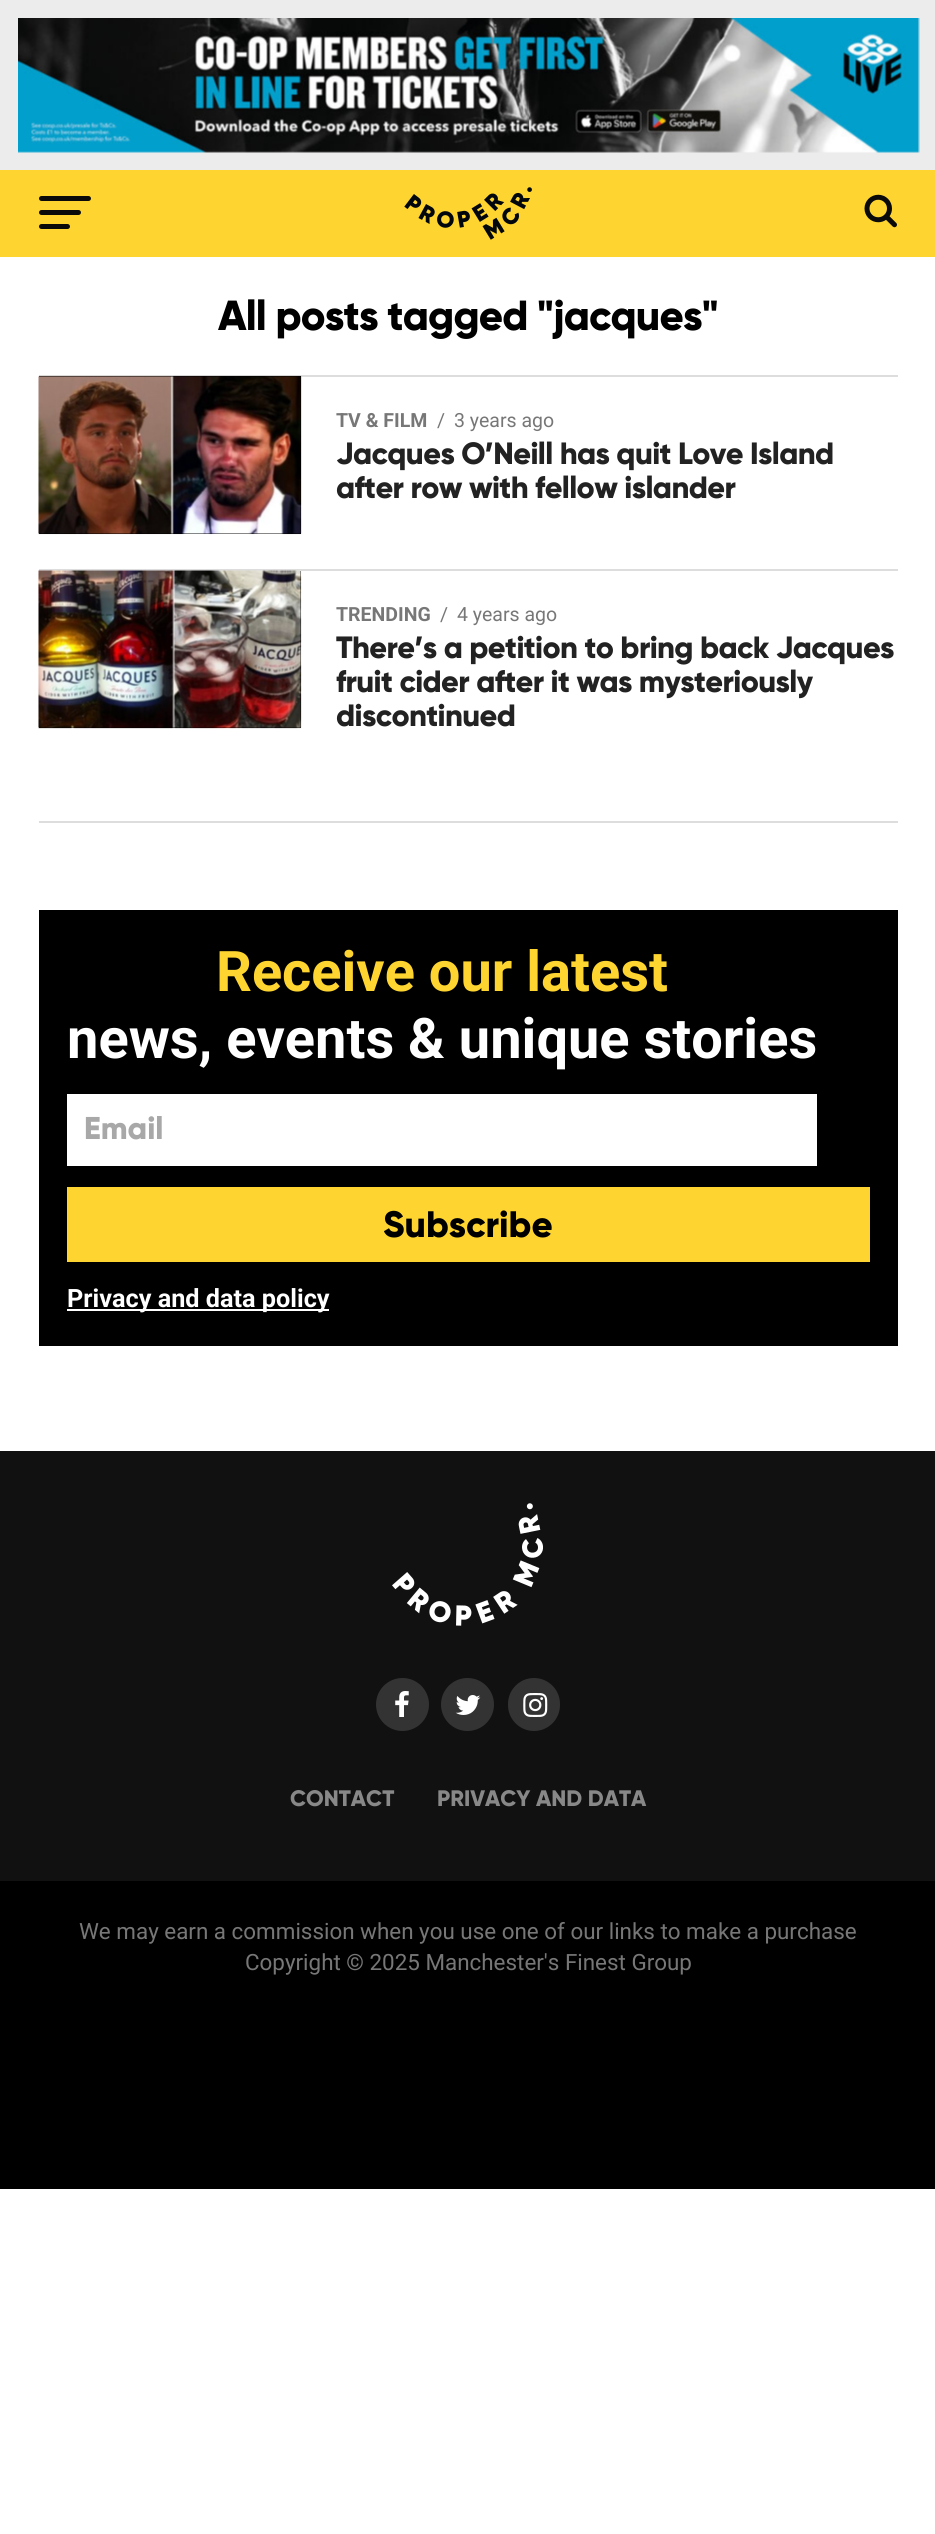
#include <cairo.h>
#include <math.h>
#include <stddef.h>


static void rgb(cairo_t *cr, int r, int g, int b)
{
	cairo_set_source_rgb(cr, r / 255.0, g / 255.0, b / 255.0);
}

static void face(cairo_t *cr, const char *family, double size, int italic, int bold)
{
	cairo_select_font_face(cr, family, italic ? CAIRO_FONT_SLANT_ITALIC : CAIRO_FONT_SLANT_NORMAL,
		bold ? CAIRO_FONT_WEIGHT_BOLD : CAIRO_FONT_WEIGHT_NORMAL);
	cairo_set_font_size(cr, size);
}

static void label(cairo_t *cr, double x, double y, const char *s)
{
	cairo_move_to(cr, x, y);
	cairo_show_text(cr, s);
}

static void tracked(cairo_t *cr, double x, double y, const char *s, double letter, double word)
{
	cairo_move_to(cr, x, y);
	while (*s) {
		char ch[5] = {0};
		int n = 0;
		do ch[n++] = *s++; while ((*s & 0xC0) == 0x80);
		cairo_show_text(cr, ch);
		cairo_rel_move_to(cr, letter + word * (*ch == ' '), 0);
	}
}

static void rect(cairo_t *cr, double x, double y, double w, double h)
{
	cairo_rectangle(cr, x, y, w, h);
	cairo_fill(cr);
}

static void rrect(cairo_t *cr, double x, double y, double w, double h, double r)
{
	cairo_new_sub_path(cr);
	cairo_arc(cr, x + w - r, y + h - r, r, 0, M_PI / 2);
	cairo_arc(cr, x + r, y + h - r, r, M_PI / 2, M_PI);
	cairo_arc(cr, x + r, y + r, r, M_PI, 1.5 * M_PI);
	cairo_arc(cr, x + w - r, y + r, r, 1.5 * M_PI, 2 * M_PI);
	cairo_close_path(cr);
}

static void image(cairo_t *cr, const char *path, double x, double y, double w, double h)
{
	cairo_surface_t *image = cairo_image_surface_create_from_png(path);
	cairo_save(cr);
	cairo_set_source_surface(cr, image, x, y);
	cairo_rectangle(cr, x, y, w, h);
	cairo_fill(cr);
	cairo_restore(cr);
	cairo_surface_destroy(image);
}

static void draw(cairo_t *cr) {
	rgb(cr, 255, 255, 255);
	cairo_paint(cr);
	rgb(cr, 236, 236, 236);
	rect(cr, 0, 0, 935, 170);
	image(cr, "image0.png", 18, 18, 902, 135);
	rgb(cr, 254, 213, 48);
	rect(cr, 0, 170, 935, 87);
	rgb(cr, 10, 10, 10);
	rrect(cr, 39, 196, 52, 5, 2.5);
	cairo_fill(cr);
	rrect(cr, 39, 210, 42, 5, 2.5);
	cairo_fill(cr);
	rrect(cr, 39, 224, 31, 5, 2.5);
	cairo_fill(cr);
	image(cr, "image1.png", 404, 187, 128, 53);
	image(cr, "image2.png", 864, 194, 33, 34);
	face(cr, "Gilroy ExtraBold", 42, 0, 0);
	rgb(cr, 0, 0, 0);
	tracked(cr, 218, 330, "All posts tagged \"jacques\"", -0.85, 0);
	rgb(cr, 221, 221, 221);
	rect(cr, 39, 375, 859, 2);
	rgb(cr, 0, 0, 0);
	rect(cr, 39, 376, 262, 158);
	image(cr, "image3.png", 38, 375, 264, 160);
	face(cr, "Roboto", 19.5, 0, 1);
	rgb(cr, 119, 119, 119);
	label(cr, 336, 427, "TV & FILM");
	face(cr, "Roboto", 19.5, 0, 0);
	label(cr, 437, 427, "/");
	label(cr, 454, 427, "3 years ago");
	face(cr, "Gilroy ExtraBold", 30.75, 0, 0);
	rgb(cr, 34, 34, 34);
	tracked(cr, 336, 464, "Jacques O’Neill has quit Love Island", -0.6, 0);
	tracked(cr, 336, 498, "after row with fellow islander", -0.6, 0);
	rgb(cr, 221, 221, 221);
	rect(cr, 39, 569, 859, 2);
	rgb(cr, 0, 0, 0);
	rect(cr, 39, 571, 262, 157);
	image(cr, "image4.png", 38, 570, 264, 159);
	face(cr, "Roboto", 19.5, 0, 1);
	rgb(cr, 119, 119, 119);
	label(cr, 336, 621, "TRENDING");
	face(cr, "Roboto", 19.5, 0, 0);
	label(cr, 440, 621, "/");
	label(cr, 457, 621, "4 years ago");
	face(cr, "Gilroy ExtraBold", 30.75, 0, 0);
	rgb(cr, 34, 34, 34);
	tracked(cr, 336, 658, "There’s a petition to bring back Jacques", -0.6, 0);
	tracked(cr, 336, 692, "fruit cider after it was mysteriously", -0.6, 0);
	tracked(cr, 336, 726, "discontinued", -0.6, 0);
	rgb(cr, 221, 221, 221);
	rect(cr, 39, 821, 859, 2);
	rgb(cr, 0, 0, 0);
	rect(cr, 39, 910, 859, 436);
	face(cr, "Roboto", 56, 0, 1);
	rgb(cr, 254, 213, 48);
	label(cr, 216, 991, "Receive our latest");
	rgb(cr, 255, 255, 255);
	label(cr, 67, 1058, "news, events & unique stories");
	rect(cr, 67, 1094, 750, 72);
	face(cr, "Gilroy ExtraBold", 31.5, 0, 0);
	rgb(cr, 168, 168, 168);
	label(cr, 84, 1139, "Email");
	rgb(cr, 254, 213, 48);
	rect(cr, 67, 1187, 803, 75);
	face(cr, "Gilroy ExtraBold", 36.75, 0, 0);
	rgb(cr, 0, 0, 0);
	label(cr, 383, 1237, "Subscribe");
	rgb(cr, 255, 255, 255);
	rect(cr, 67, 1309, 262, 2);
	face(cr, "Roboto", 25.25, 0, 1);
	label(cr, 67, 1307, "Privacy and data policy");
	rgb(cr, 17, 17, 17);
	rect(cr, 0, 1451, 935, 430);
	image(cr, "image5.png", 392, 1503, 151, 123);
	rgb(cr, 51, 51, 51);
	cairo_arc(cr, 402.5, 1704.5, 26.5, 0, 2 * M_PI);
	cairo_fill(cr);
	image(cr, "image6.png", 395, 1691, 14, 26);
	cairo_arc(cr, 467.5, 1704.5, 26.5, 0, 2 * M_PI);
	cairo_fill(cr);
	image(cr, "image7.png", 455, 1695, 26, 20);
	rrect(cr, 508, 1678, 52, 53, 26);
	cairo_fill(cr);
	image(cr, "image8.png", 523, 1693, 25, 24);
	face(cr, "Gilroy ExtraBold", 22.4, 0, 0);
	rgb(cr, 136, 136, 136);
	label(cr, 290, 1806, "CONTACT");
	label(cr, 437, 1806, "PRIVACY AND DATA");
	rgb(cr, 0, 0, 0);
	rect(cr, 0, 1881, 935, 308);
	face(cr, "Roboto", 22.4, 0, 0);
	rgb(cr, 119, 119, 119);
	label(cr, 79, 1939, "We may earn a commission when you use one of our links to make a purchase");
	label(cr, 245, 1970, "Copyright © 2025 Manchester's Finest Group");
}

int main(void) {
	cairo_surface_t *surface = cairo_image_surface_create(CAIRO_FORMAT_RGB24, 935, 2534);
	cairo_t *cr = cairo_create(surface);
	cairo_font_options_t *options = cairo_font_options_create();
	cairo_font_options_set_hint_metrics(options, CAIRO_HINT_METRICS_OFF);
	cairo_font_options_set_hint_style(options, CAIRO_HINT_STYLE_NONE);
	cairo_set_font_options(cr, options);
	cairo_set_miter_limit(cr, 4);
	draw(cr);
	cairo_surface_write_to_png(surface, "render.png");
	cairo_font_options_destroy(options);
	cairo_destroy(cr);
	cairo_surface_destroy(surface);
	return 0;
}
